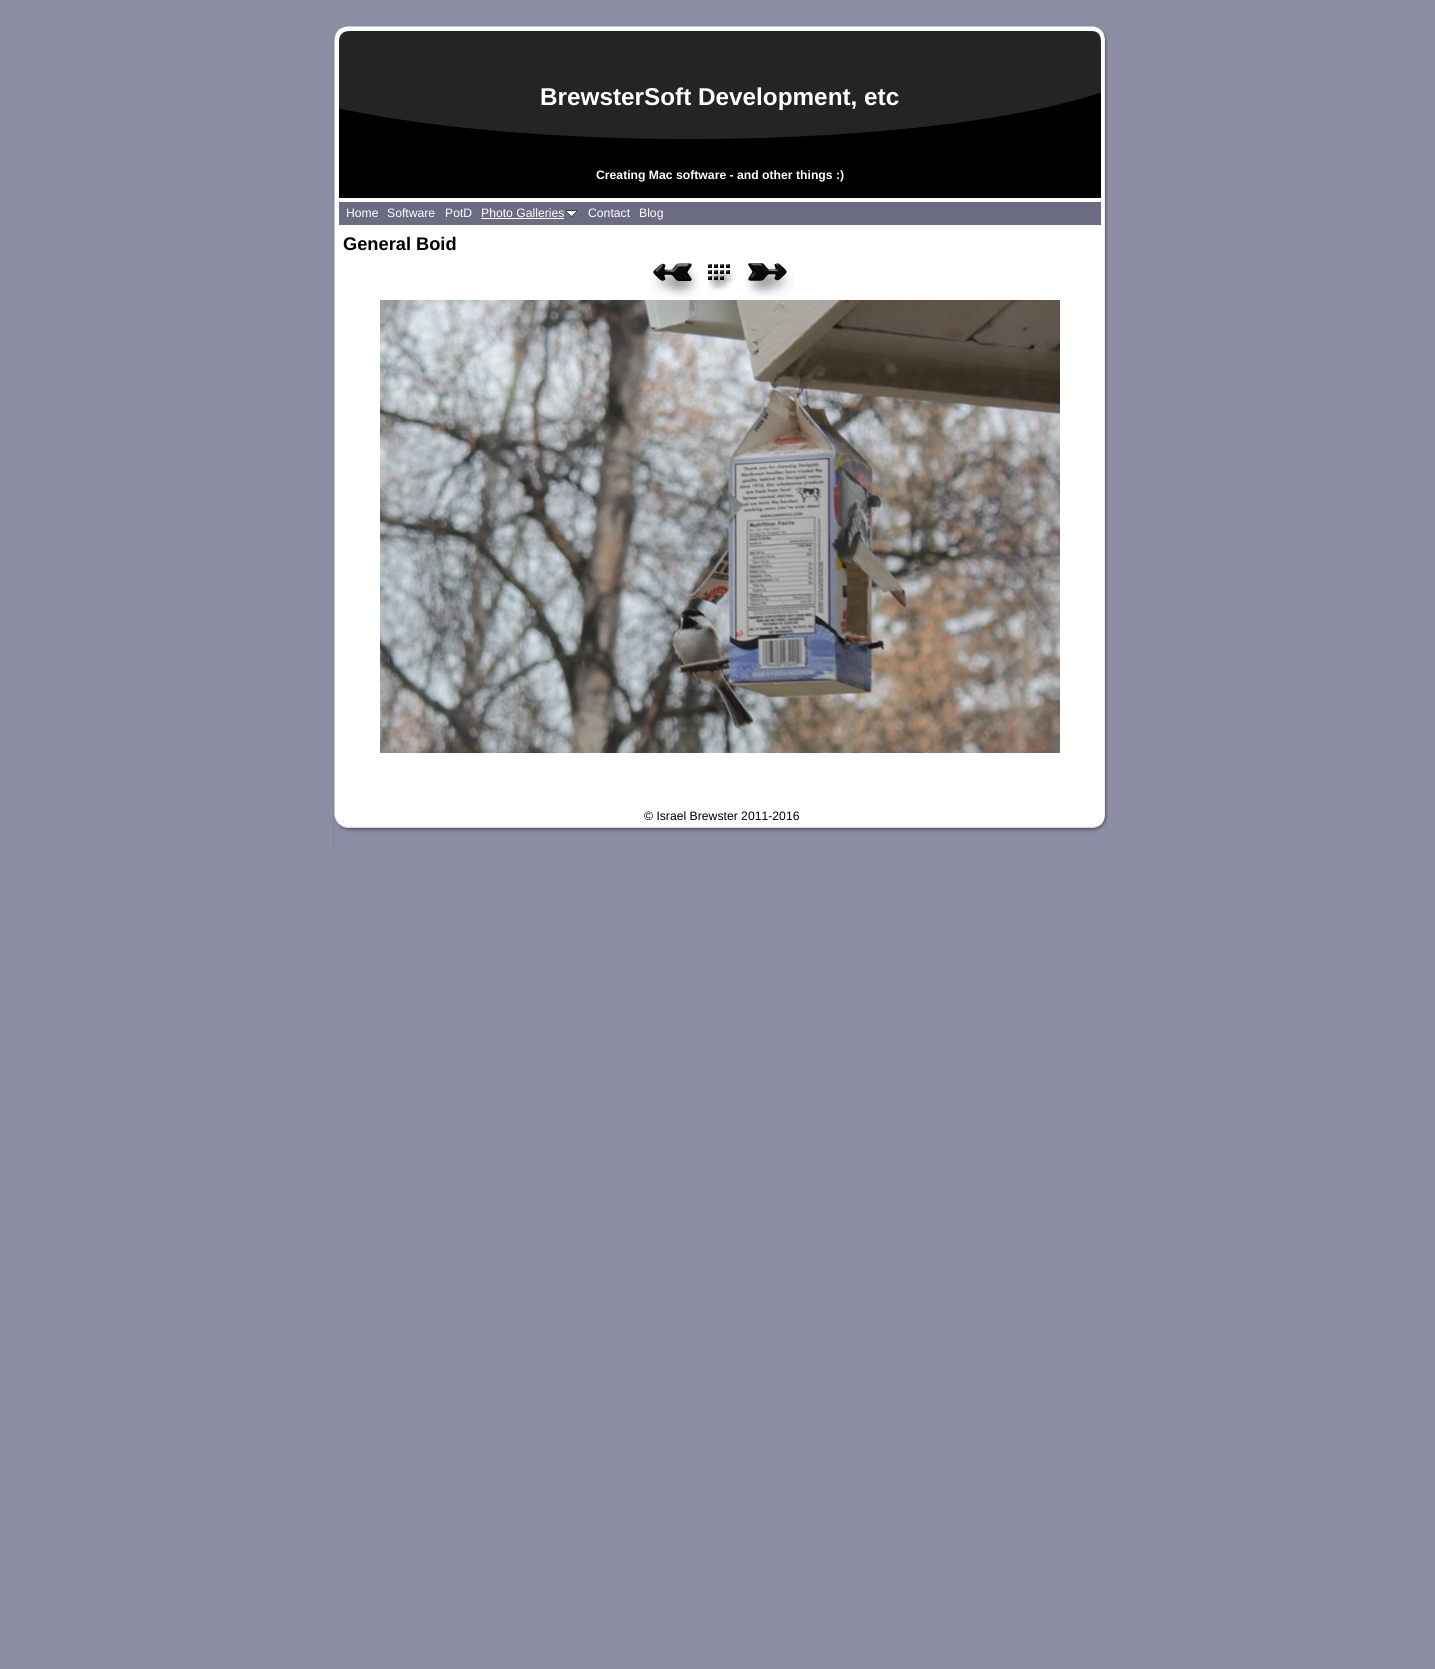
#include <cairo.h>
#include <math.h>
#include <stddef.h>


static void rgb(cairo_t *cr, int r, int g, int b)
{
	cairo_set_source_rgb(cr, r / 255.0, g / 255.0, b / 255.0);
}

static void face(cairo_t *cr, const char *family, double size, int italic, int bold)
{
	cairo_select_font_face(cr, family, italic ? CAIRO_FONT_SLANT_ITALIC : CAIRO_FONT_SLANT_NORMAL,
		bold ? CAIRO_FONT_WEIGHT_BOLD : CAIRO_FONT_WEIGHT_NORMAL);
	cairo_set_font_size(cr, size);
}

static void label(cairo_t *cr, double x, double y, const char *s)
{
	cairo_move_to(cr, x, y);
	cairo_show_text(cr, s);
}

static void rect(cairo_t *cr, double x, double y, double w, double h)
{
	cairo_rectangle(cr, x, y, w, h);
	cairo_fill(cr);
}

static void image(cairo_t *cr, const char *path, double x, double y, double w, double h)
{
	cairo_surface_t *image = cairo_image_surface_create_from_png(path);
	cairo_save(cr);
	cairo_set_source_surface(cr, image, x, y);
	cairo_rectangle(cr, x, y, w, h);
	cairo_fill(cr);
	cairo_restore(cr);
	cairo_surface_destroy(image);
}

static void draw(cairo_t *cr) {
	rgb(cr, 141, 141, 164);
	cairo_paint(cr);
	image(cr, "image0.png", 333, 198, 775, 653);
	image(cr, "image1.png", 332, 12, 776, 186);
	face(cr, "Liberation Sans", 24.3, 0, 1);
	rgb(cr, 255, 255, 255);
	label(cr, 540, 105, "BrewsterSoft Development, etc");
	face(cr, "Liberation Sans", 12.2, 0, 1);
	label(cr, 596, 179, "Creating Mac software - and other things :)");
	rgb(cr, 107, 107, 130);
	rect(cr, 339, 202, 762, 23);
	face(cr, "Liberation Sans", 12.2, 0, 0);
	rgb(cr, 255, 255, 255);
	label(cr, 346, 217, "Home");
	label(cr, 387, 217, "Software");
	label(cr, 445, 217, "PotD");
	label(cr, 481, 217, "Photo Galleries");
	rect(cr, 481, 218, 83, 1);
	image(cr, "image2.png", 566, 210, 11, 7);
	label(cr, 588, 217, "Contact");
	label(cr, 639, 217, "Blog");
	face(cr, "Liberation Sans", 18.25, 0, 1);
	rgb(cr, 0, 0, 0);
	label(cr, 343, 250, "General Boid");
	image(cr, "image3.png", 650, 263, 49, 35);
	image(cr, "image4.png", 707, 264, 27, 27);
	image(cr, "image5.png", 745, 263, 49, 34);
	image(cr, "image6.png", 380, 300, 680, 453);
	image(cr, "image7.png", 334, 815, 774, 36);
	face(cr, "Liberation Sans", 12.2, 0, 0);
	label(cr, 644, 820, "© Israel Brewster 2011-2016");
}

int main(void) {
	cairo_surface_t *surface = cairo_image_surface_create(CAIRO_FORMAT_RGB24, 1435, 1669);
	cairo_t *cr = cairo_create(surface);
	cairo_font_options_t *options = cairo_font_options_create();
	cairo_font_options_set_hint_metrics(options, CAIRO_HINT_METRICS_OFF);
	cairo_font_options_set_hint_style(options, CAIRO_HINT_STYLE_NONE);
	cairo_set_font_options(cr, options);
	cairo_set_miter_limit(cr, 4);
	draw(cr);
	cairo_surface_write_to_png(surface, "render.png");
	cairo_font_options_destroy(options);
	cairo_destroy(cr);
	cairo_surface_destroy(surface);
	return 0;
}
